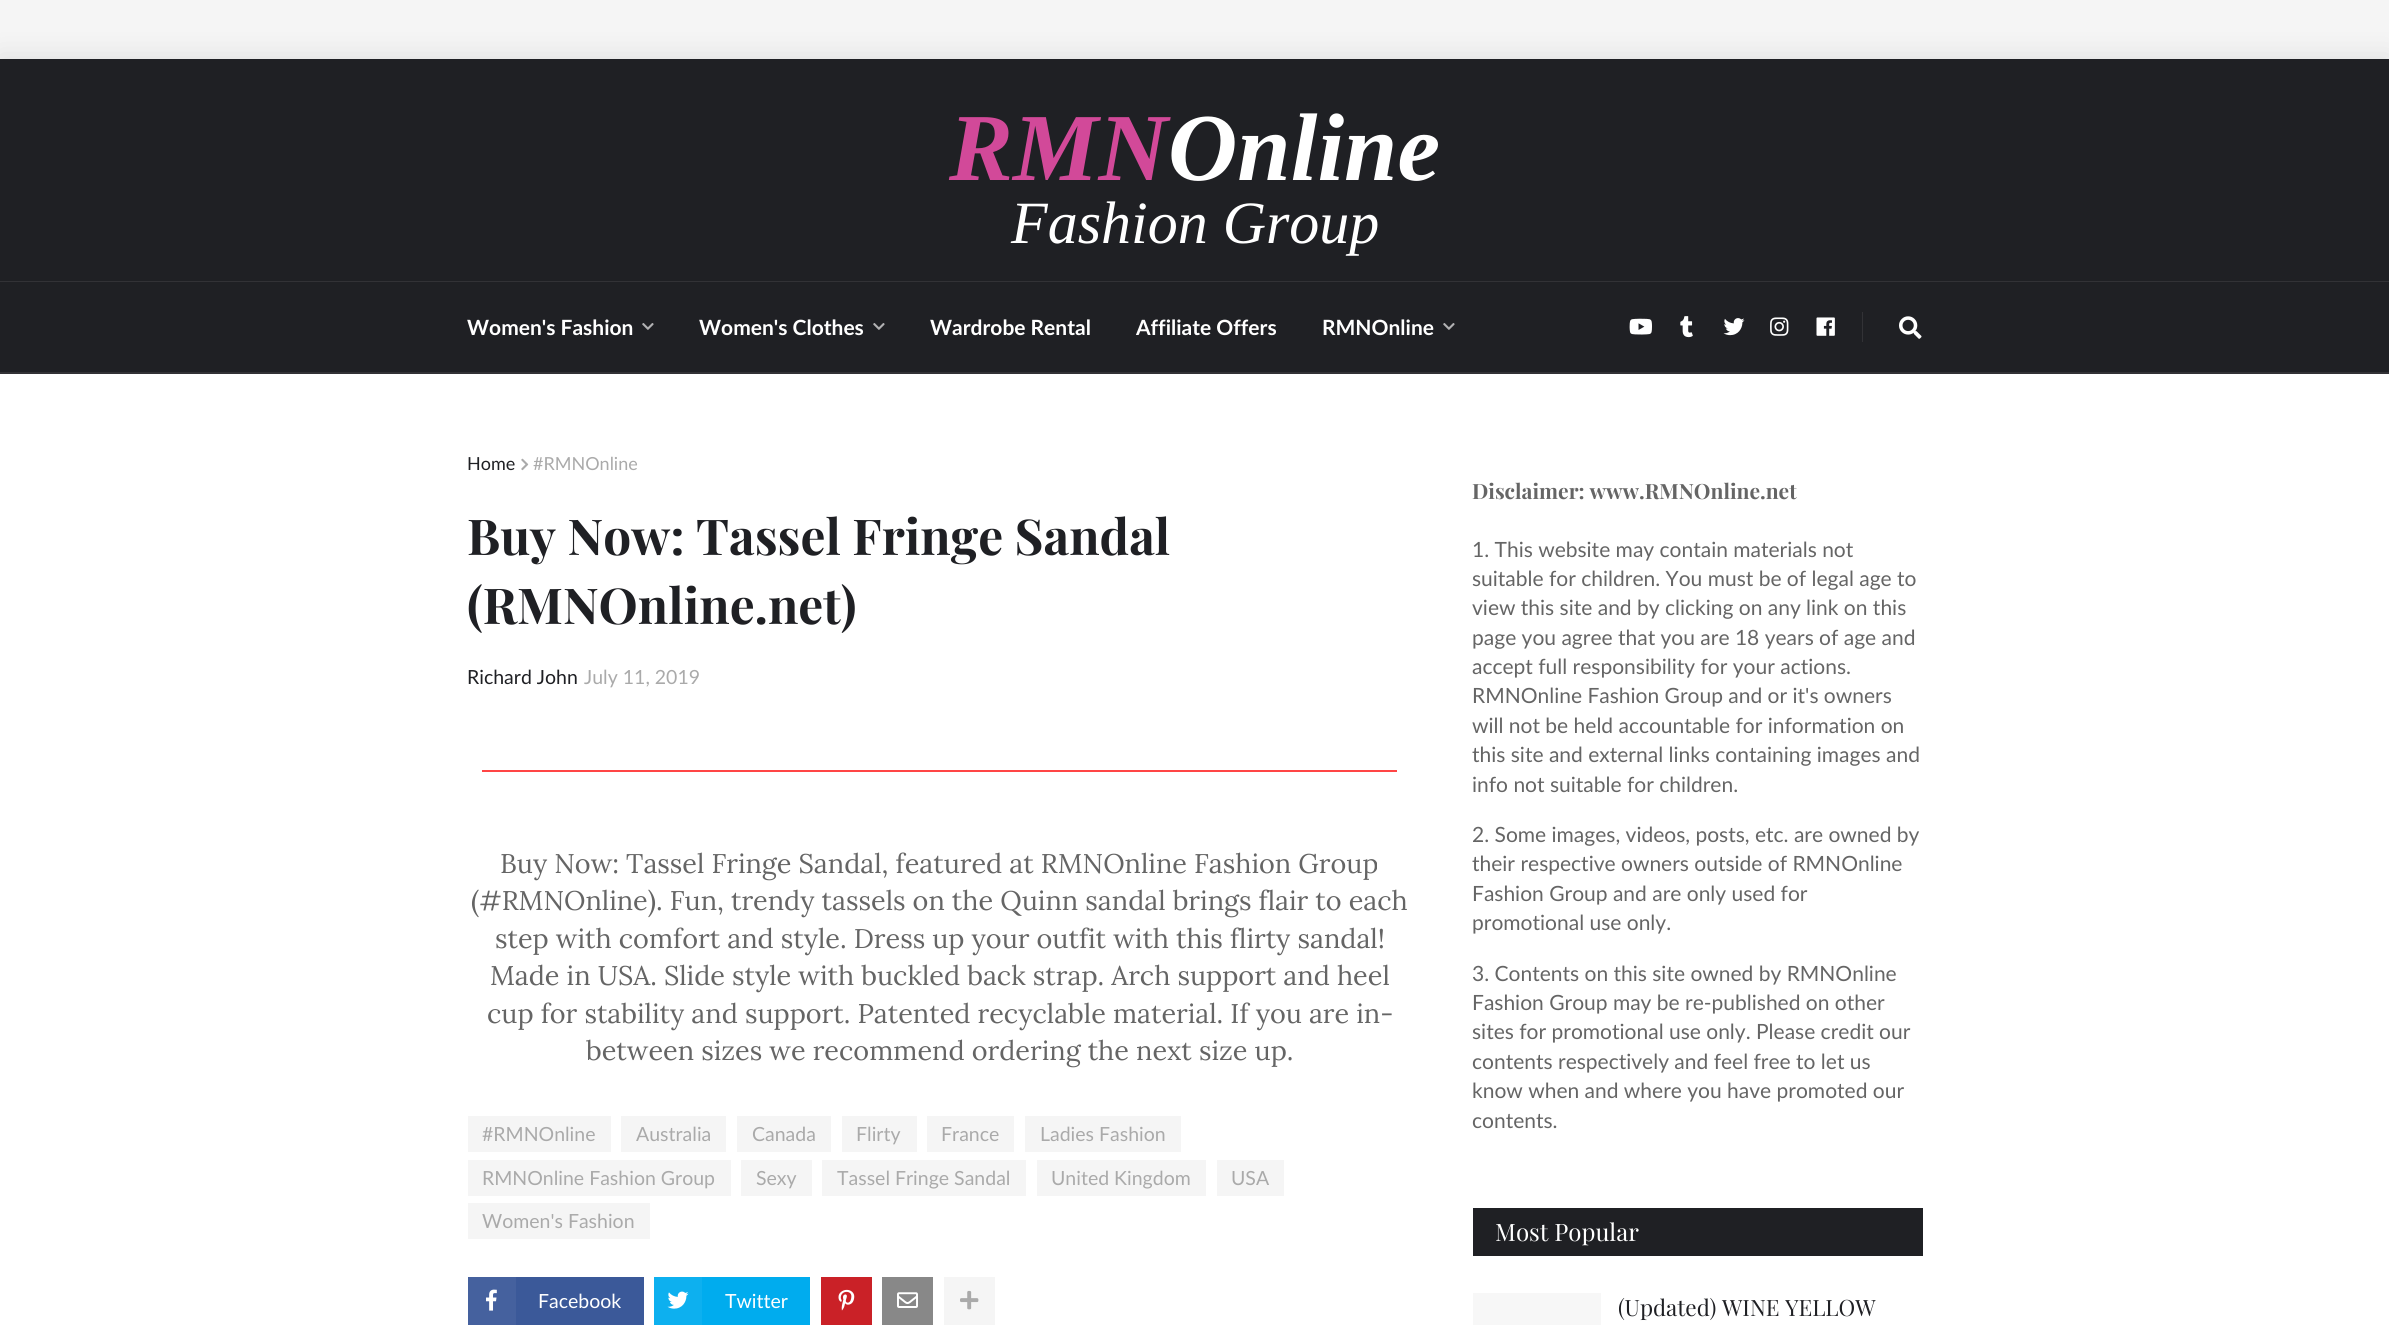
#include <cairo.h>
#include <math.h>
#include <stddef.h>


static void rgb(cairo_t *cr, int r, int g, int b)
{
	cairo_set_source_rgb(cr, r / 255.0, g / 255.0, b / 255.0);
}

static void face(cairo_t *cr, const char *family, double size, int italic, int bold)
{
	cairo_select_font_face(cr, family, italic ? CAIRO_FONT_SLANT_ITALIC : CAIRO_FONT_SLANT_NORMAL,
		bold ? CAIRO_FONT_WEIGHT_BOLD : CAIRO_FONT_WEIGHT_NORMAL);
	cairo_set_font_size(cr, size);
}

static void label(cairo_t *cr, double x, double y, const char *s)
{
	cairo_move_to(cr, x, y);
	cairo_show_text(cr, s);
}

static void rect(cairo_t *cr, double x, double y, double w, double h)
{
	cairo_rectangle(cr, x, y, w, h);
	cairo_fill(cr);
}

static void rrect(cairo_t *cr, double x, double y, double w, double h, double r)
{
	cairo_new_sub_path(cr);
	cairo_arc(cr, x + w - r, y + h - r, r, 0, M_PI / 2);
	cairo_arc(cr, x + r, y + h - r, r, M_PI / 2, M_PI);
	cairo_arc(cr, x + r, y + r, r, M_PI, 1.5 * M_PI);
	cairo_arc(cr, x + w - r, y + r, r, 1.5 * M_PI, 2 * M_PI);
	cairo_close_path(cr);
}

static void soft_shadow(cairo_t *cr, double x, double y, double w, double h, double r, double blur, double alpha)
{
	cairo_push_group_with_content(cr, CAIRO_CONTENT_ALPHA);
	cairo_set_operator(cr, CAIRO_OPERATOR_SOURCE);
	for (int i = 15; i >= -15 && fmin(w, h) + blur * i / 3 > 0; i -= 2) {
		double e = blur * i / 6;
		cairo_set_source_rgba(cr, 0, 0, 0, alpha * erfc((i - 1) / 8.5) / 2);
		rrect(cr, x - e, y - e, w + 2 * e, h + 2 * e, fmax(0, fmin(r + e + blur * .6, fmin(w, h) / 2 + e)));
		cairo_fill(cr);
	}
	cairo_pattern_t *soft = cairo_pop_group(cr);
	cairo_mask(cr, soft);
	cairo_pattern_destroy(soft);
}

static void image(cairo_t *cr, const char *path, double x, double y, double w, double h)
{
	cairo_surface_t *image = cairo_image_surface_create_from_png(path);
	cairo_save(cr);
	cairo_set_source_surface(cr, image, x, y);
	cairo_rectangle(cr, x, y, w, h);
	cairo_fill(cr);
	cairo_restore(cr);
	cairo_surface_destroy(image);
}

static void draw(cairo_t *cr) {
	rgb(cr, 245, 245, 245);
	cairo_paint(cr);
	rgb(cr, 0, 0, 0);
	soft_shadow(cr, 0, 59, 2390, 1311, 0, 15, 0.1);
	rgb(cr, 255, 255, 255);
	rect(cr, 0, 374, 2389, 951);
	rgb(cr, 31, 32, 36);
	rect(cr, 0, 59, 2389, 222);
	rgb(cr, 50, 50, 54);
	rect(cr, 0, 372, 2389, 2);
	face(cr, "Liberation Serif", 96, 1, 1);
	rgb(cr, 210, 73, 153);
	label(cr, 949, 180, "RMN");
	rgb(cr, 255, 255, 255);
	label(cr, 1168, 180, "Online");
	face(cr, "Liberation Serif", 60, 1, 0);
	label(cr, 1011, 243, "Fashion Group");
	rgb(cr, 50, 50, 54);
	rect(cr, 0, 281, 2389, 1);
	rgb(cr, 31, 32, 36);
	rect(cr, 0, 282, 2389, 90);
	face(cr, "Lato", 21, 0, 1);
	rgb(cr, 255, 255, 255);
	label(cr, 467, 335, "Women's Fashion");
	image(cr, "image0.png", 642, 323, 12, 7);
	label(cr, 699, 335, "Women's Clothes");
	image(cr, "image0.png", 873, 323, 12, 7);
	label(cr, 930, 335, "Wardrobe Rental");
	label(cr, 1136, 335, "Affiliate Offers");
	label(cr, 1322, 335, "RMNOnline");
	image(cr, "image0.png", 1443, 323, 12, 7);
	image(cr, "image1.png", 1629, 318, 23, 17);
	image(cr, "image2.png", 1680, 316, 13, 22);
	image(cr, "image3.png", 1723, 318, 22, 18);
	image(cr, "image4.png", 1770, 317, 19, 19);
	image(cr, "image5.png", 1816, 317, 19, 19);
	rgb(cr, 50, 50, 54);
	rect(cr, 1862, 312, 1, 30);
	image(cr, "image6.png", 1899, 316, 23, 23);
	face(cr, "Lato", 18, 0, 0);
	rgb(cr, 31, 32, 36);
	label(cr, 467, 470, "Home");
	image(cr, "image7.png", 521, 458, 8, 13);
	rgb(cr, 170, 170, 170);
	label(cr, 533, 470, "#RMNOnline");
	face(cr, "Playfair Display", 49.5, 0, 1);
	rgb(cr, 31, 32, 36);
	label(cr, 467, 555, "Buy Now: Tassel Fringe Sandal");
	label(cr, 467, 624, "(RMNOnline.net)");
	face(cr, "Lato", 19.5, 0, 0);
	label(cr, 467, 684, "Richard John");
	rgb(cr, 170, 170, 170);
	label(cr, 584, 684, "July 11, 2019");
	rgb(cr, 255, 69, 69);
	rect(cr, 482, 770, 915, 2);
	face(cr, "Lora", 27, 0, 0);
	rgb(cr, 101, 101, 101);
	label(cr, 500, 873, "Buy Now: Tassel Fringe Sandal, featured at RMNOnline Fashion Group");
	label(cr, 471, 910, "(#RMNOnline). Fun, trendy tassels on the Quinn sandal brings flair to each");
	label(cr, 495, 948, "step with comfort and style. Dress up your outfit with this flirty sandal!");
	label(cr, 490, 985, "Made in USA. Slide style with buckled back strap. Arch support and heel");
	label(cr, 487, 1023, "cup for stability and support. Patented recyclable material. If you are in-");
	label(cr, 586, 1060, "between sizes we recommend ordering the next size up.");
	rgb(cr, 245, 245, 245);
	rect(cr, 468, 1116, 143, 36);
	face(cr, "Lato", 19.5, 0, 0);
	rgb(cr, 170, 170, 170);
	label(cr, 482, 1141, "#RMNOnline");
	rgb(cr, 245, 245, 245);
	rect(cr, 621, 1116, 105, 36);
	rgb(cr, 170, 170, 170);
	label(cr, 636, 1141, "Australia");
	rgb(cr, 245, 245, 245);
	rect(cr, 737, 1116, 94, 36);
	rgb(cr, 170, 170, 170);
	label(cr, 752, 1141, "Canada");
	rgb(cr, 245, 245, 245);
	rect(cr, 842, 1116, 75, 36);
	rgb(cr, 170, 170, 170);
	label(cr, 856, 1141, "Flirty");
	rgb(cr, 245, 245, 245);
	rect(cr, 927, 1116, 87, 36);
	rgb(cr, 170, 170, 170);
	label(cr, 941, 1141, "France");
	rgb(cr, 245, 245, 245);
	rect(cr, 1025, 1116, 156, 36);
	rgb(cr, 170, 170, 170);
	label(cr, 1040, 1141, "Ladies Fashion");
	rgb(cr, 245, 245, 245);
	rect(cr, 468, 1160, 263, 36);
	rgb(cr, 170, 170, 170);
	label(cr, 482, 1185, "RMNOnline Fashion Group");
	rgb(cr, 245, 245, 245);
	rect(cr, 741, 1160, 71, 36);
	rgb(cr, 170, 170, 170);
	label(cr, 756, 1185, "Sexy");
	rgb(cr, 245, 245, 245);
	rect(cr, 822, 1160, 204, 36);
	rgb(cr, 170, 170, 170);
	label(cr, 837, 1185, "Tassel Fringe Sandal");
	rgb(cr, 245, 245, 245);
	rect(cr, 1037, 1160, 169, 36);
	rgb(cr, 170, 170, 170);
	label(cr, 1051, 1185, "United Kingdom");
	rgb(cr, 245, 245, 245);
	rect(cr, 1217, 1160, 67, 36);
	rgb(cr, 170, 170, 170);
	label(cr, 1231, 1185, "USA");
	rgb(cr, 245, 245, 245);
	rect(cr, 468, 1203, 182, 36);
	rgb(cr, 170, 170, 170);
	label(cr, 482, 1228, "Women's Fashion");
	rgb(cr, 59, 89, 153);
	rect(cr, 516, 1277, 128, 48);
	rgb(cr, 69, 97, 158);
	rect(cr, 468, 1277, 48, 48);
	image(cr, "image8.png", 486, 1289, 11, 22);
	rgb(cr, 255, 255, 255);
	label(cr, 538, 1308, "Facebook");
	rgb(cr, 0, 172, 238);
	rect(cr, 702, 1277, 108, 48);
	rgb(cr, 13, 176, 239);
	rect(cr, 654, 1277, 48, 48);
	image(cr, "image9.png", 667, 1291, 22, 18);
	rgb(cr, 255, 255, 255);
	label(cr, 725, 1308, "Twitter");
	rgb(cr, 202, 33, 39);
	rect(cr, 821, 1277, 51, 48);
	image(cr, "image10.png", 838, 1289, 17, 22);
	rgb(cr, 136, 136, 136);
	rect(cr, 882, 1277, 51, 48);
	image(cr, "image11.png", 897, 1292, 21, 16);
	rgb(cr, 245, 245, 245);
	rect(cr, 944, 1277, 51, 48);
	image(cr, "image12.png", 960, 1290, 19, 20);
	face(cr, "Playfair Display", 21, 0, 1);
	rgb(cr, 101, 101, 101);
	label(cr, 1472, 499, "Disclaimer: www.RMNOnline.net");
	face(cr, "Lato", 21, 0, 0);
	label(cr, 1472, 557, "1. This website may contain materials not");
	label(cr, 1472, 586, "suitable for children. You must be of legal age to");
	label(cr, 1472, 615, "view this site and by clicking on any link on this");
	label(cr, 1472, 645, "page you agree that you are 18 years of age and");
	label(cr, 1472, 674, "accept full responsibility for your actions.");
	label(cr, 1472, 703, "RMNOnline Fashion Group and or it's owners");
	label(cr, 1472, 733, "will not be held accountable for information on");
	label(cr, 1472, 762, "this site and external links containing images and");
	label(cr, 1472, 792, "info not suitable for children.");
	label(cr, 1472, 842, "2. Some images, videos, posts, etc. are owned by");
	label(cr, 1472, 871, "their respective owners outside of RMNOnline");
	label(cr, 1472, 901, "Fashion Group and are only used for");
	label(cr, 1472, 930, "promotional use only.");
	label(cr, 1472, 981, "3. Contents on this site owned by RMNOnline");
	label(cr, 1472, 1010, "Fashion Group may be re-published on other");
	label(cr, 1472, 1039, "sites for promotional use only. Please credit our");
	label(cr, 1472, 1069, "contents respectively and feel free to let us");
	label(cr, 1472, 1098, "know when and where you have promoted our");
	label(cr, 1472, 1128, "contents.");
	rgb(cr, 31, 32, 36);
	rect(cr, 1473, 1208, 450, 48);
	face(cr, "Playfair Display", 24, 0, 0);
	rgb(cr, 255, 255, 255);
	label(cr, 1495, 1241, "Most Popular");
	rgb(cr, 247, 247, 247);
	rect(cr, 1473, 1293, 128, 32);
	cairo_save(cr);
	cairo_rectangle(cr, 1619, 1293, 304, 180);
	cairo_clip(cr);
	face(cr, "Playfair Display", 22.5, 0, 0);
	rgb(cr, 31, 32, 36);
	label(cr, 1618, 1316, "(Updated) WINE YELLOW");
	cairo_restore(cr);
}

int main(void) {
	cairo_surface_t *surface = cairo_image_surface_create(CAIRO_FORMAT_RGB24, 2389, 1325);
	cairo_t *cr = cairo_create(surface);
	cairo_font_options_t *options = cairo_font_options_create();
	cairo_font_options_set_hint_metrics(options, CAIRO_HINT_METRICS_OFF);
	cairo_font_options_set_hint_style(options, CAIRO_HINT_STYLE_NONE);
	cairo_set_font_options(cr, options);
	cairo_set_miter_limit(cr, 4);
	draw(cr);
	cairo_surface_write_to_png(surface, "render.png");
	cairo_font_options_destroy(options);
	cairo_destroy(cr);
	cairo_surface_destroy(surface);
	return 0;
}
